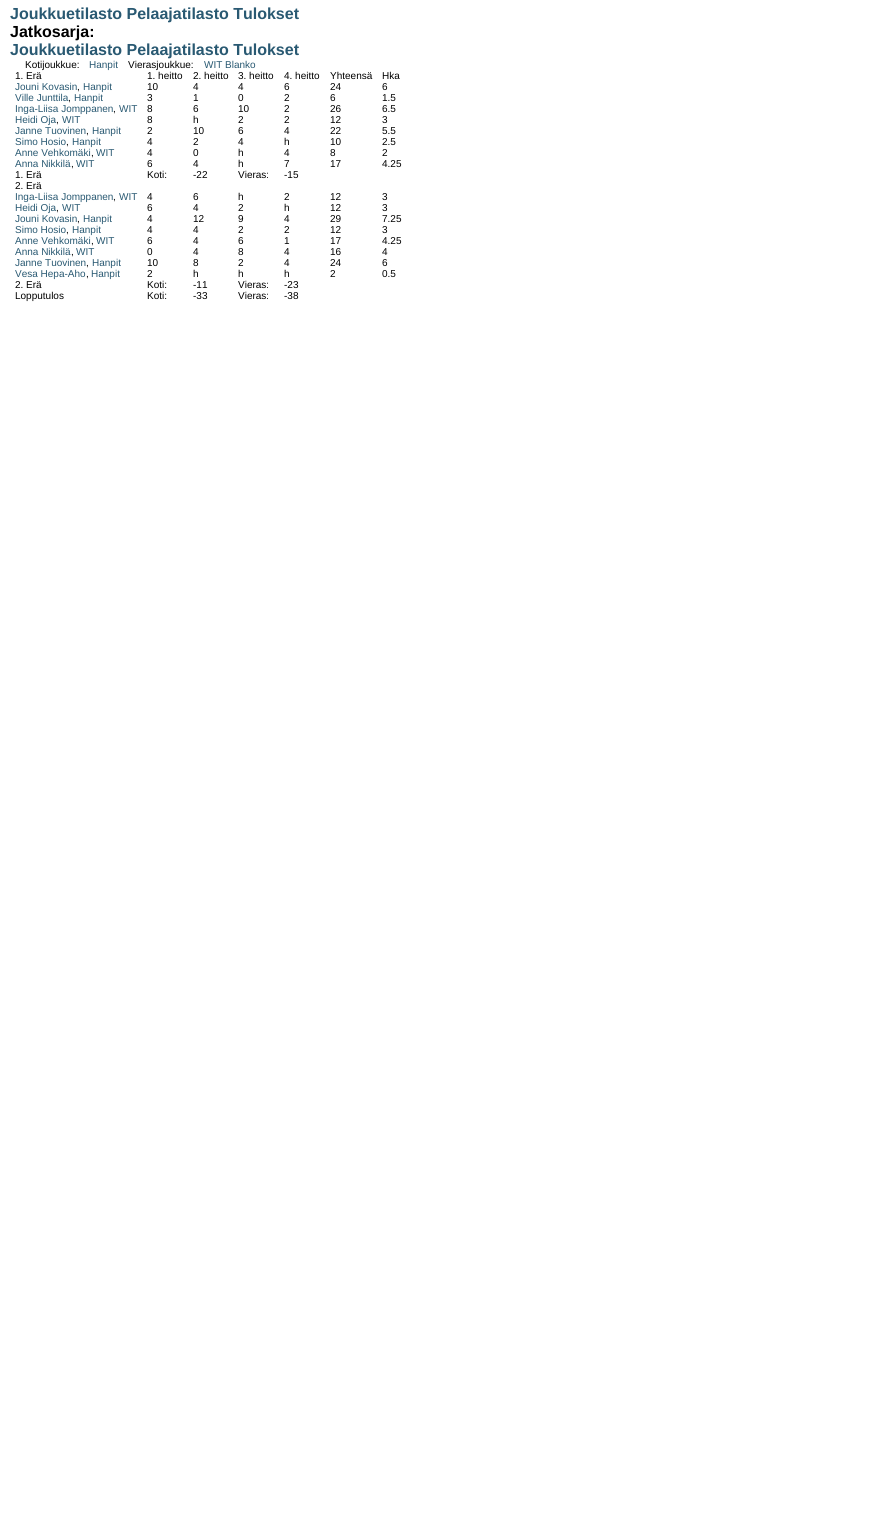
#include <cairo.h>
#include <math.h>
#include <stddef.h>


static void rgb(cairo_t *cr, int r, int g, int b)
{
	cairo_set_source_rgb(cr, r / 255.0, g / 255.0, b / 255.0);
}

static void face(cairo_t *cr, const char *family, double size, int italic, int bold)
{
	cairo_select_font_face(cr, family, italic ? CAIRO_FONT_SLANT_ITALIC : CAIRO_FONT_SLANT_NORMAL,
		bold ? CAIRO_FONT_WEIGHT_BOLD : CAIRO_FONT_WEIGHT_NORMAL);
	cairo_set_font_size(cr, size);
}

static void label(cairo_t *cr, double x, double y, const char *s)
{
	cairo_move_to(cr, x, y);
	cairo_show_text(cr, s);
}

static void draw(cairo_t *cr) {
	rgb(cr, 255, 255, 255);
	cairo_paint(cr);
	face(cr, "Liberation Sans", 16, 0, 1);
	rgb(cr, 41, 89, 114);
	label(cr, 10, 19, "Joukkuetilasto Pelaajatilasto Tulokset");
	rgb(cr, 0, 0, 0);
	label(cr, 10, 37, "Jatkosarja:");
	rgb(cr, 41, 89, 114);
	label(cr, 10, 55, "Joukkuetilasto Pelaajatilasto Tulokset");
	face(cr, "Liberation Sans", 10, 0, 0);
	rgb(cr, 0, 0, 0);
	label(cr, 25, 68, "Kotijoukkue:");
	rgb(cr, 41, 89, 114);
	label(cr, 89, 68, "Hanpit");
	rgb(cr, 0, 0, 0);
	label(cr, 128, 68, "Vierasjoukkue:");
	rgb(cr, 41, 89, 114);
	label(cr, 204, 68, "WIT Blanko");
	rgb(cr, 0, 0, 0);
	label(cr, 15, 79, "1. Erä");
	label(cr, 147, 79, "1. heitto");
	label(cr, 193, 79, "2. heitto");
	label(cr, 238, 79, "3. heitto");
	label(cr, 284, 79, "4. heitto");
	label(cr, 330, 79, "Yhteensä");
	label(cr, 382, 79, "Hka");
	rgb(cr, 41, 89, 114);
	label(cr, 15, 90, "Jouni Kovasin");
	rgb(cr, 0, 0, 0);
	label(cr, 77, 90, ",");
	rgb(cr, 41, 89, 114);
	label(cr, 83, 90, "Hanpit");
	rgb(cr, 0, 0, 0);
	label(cr, 147, 90, "10");
	label(cr, 193, 90, "4");
	label(cr, 238, 90, "4");
	label(cr, 284, 90, "6");
	label(cr, 330, 90, "24");
	label(cr, 382, 90, "6");
	rgb(cr, 41, 89, 114);
	label(cr, 15, 101, "Ville Junttila");
	rgb(cr, 0, 0, 0);
	label(cr, 68, 101, ",");
	rgb(cr, 41, 89, 114);
	label(cr, 74, 101, "Hanpit");
	rgb(cr, 0, 0, 0);
	label(cr, 147, 101, "3");
	label(cr, 193, 101, "1");
	label(cr, 238, 101, "0");
	label(cr, 284, 101, "2");
	label(cr, 330, 101, "6");
	label(cr, 382, 101, "1.5");
	rgb(cr, 41, 89, 114);
	label(cr, 15, 112, "Inga-Liisa Jomppanen");
	rgb(cr, 0, 0, 0);
	label(cr, 113, 112, ",");
	rgb(cr, 41, 89, 114);
	label(cr, 119, 112, "WIT");
	rgb(cr, 0, 0, 0);
	label(cr, 147, 112, "8");
	label(cr, 193, 112, "6");
	label(cr, 238, 112, "10");
	label(cr, 284, 112, "2");
	label(cr, 330, 112, "26");
	label(cr, 382, 112, "6.5");
	rgb(cr, 41, 89, 114);
	label(cr, 15, 123, "Heidi Oja");
	rgb(cr, 0, 0, 0);
	label(cr, 56, 123, ",");
	rgb(cr, 41, 89, 114);
	label(cr, 62, 123, "WIT");
	rgb(cr, 0, 0, 0);
	label(cr, 147, 123, "8");
	label(cr, 193, 123, "h");
	label(cr, 238, 123, "2");
	label(cr, 284, 123, "2");
	label(cr, 330, 123, "12");
	label(cr, 382, 123, "3");
	rgb(cr, 41, 89, 114);
	label(cr, 15, 134, "Janne Tuovinen");
	rgb(cr, 0, 0, 0);
	label(cr, 86, 134, ",");
	rgb(cr, 41, 89, 114);
	label(cr, 92, 134, "Hanpit");
	rgb(cr, 0, 0, 0);
	label(cr, 147, 134, "2");
	label(cr, 193, 134, "10");
	label(cr, 238, 134, "6");
	label(cr, 284, 134, "4");
	label(cr, 330, 134, "22");
	label(cr, 382, 134, "5.5");
	rgb(cr, 41, 89, 114);
	label(cr, 15, 145, "Simo Hosio");
	rgb(cr, 0, 0, 0);
	label(cr, 66, 145, ",");
	rgb(cr, 41, 89, 114);
	label(cr, 72, 145, "Hanpit");
	rgb(cr, 0, 0, 0);
	label(cr, 147, 145, "4");
	label(cr, 193, 145, "2");
	label(cr, 238, 145, "4");
	label(cr, 284, 145, "h");
	label(cr, 330, 145, "10");
	label(cr, 382, 145, "2.5");
	rgb(cr, 41, 89, 114);
	label(cr, 15, 156, "Anne Vehkomäki");
	rgb(cr, 0, 0, 0);
	label(cr, 91, 156, ",");
	rgb(cr, 41, 89, 114);
	label(cr, 96, 156, "WIT");
	rgb(cr, 0, 0, 0);
	label(cr, 147, 156, "4");
	label(cr, 193, 156, "0");
	label(cr, 238, 156, "h");
	label(cr, 284, 156, "4");
	label(cr, 330, 156, "8");
	label(cr, 382, 156, "2");
	rgb(cr, 41, 89, 114);
	label(cr, 15, 167, "Anna Nikkilä");
	rgb(cr, 0, 0, 0);
	label(cr, 71, 167, ",");
	rgb(cr, 41, 89, 114);
	label(cr, 76, 167, "WIT");
	rgb(cr, 0, 0, 0);
	label(cr, 147, 167, "6");
	label(cr, 193, 167, "4");
	label(cr, 238, 167, "h");
	label(cr, 284, 167, "7");
	label(cr, 330, 167, "17");
	label(cr, 382, 167, "4.25");
	label(cr, 15, 178, "1. Erä");
	label(cr, 147, 178, "Koti:");
	label(cr, 193, 178, "-22");
	label(cr, 238, 178, "Vieras:");
	label(cr, 284, 178, "-15");
	label(cr, 15, 189, "2. Erä");
	rgb(cr, 41, 89, 114);
	label(cr, 15, 200, "Inga-Liisa Jomppanen");
	rgb(cr, 0, 0, 0);
	label(cr, 113, 200, ",");
	rgb(cr, 41, 89, 114);
	label(cr, 119, 200, "WIT");
	rgb(cr, 0, 0, 0);
	label(cr, 147, 200, "4");
	label(cr, 193, 200, "6");
	label(cr, 238, 200, "h");
	label(cr, 284, 200, "2");
	label(cr, 330, 200, "12");
	label(cr, 382, 200, "3");
	rgb(cr, 41, 89, 114);
	label(cr, 15, 211, "Heidi Oja");
	rgb(cr, 0, 0, 0);
	label(cr, 56, 211, ",");
	rgb(cr, 41, 89, 114);
	label(cr, 62, 211, "WIT");
	rgb(cr, 0, 0, 0);
	label(cr, 147, 211, "6");
	label(cr, 193, 211, "4");
	label(cr, 238, 211, "2");
	label(cr, 284, 211, "h");
	label(cr, 330, 211, "12");
	label(cr, 382, 211, "3");
	rgb(cr, 41, 89, 114);
	label(cr, 15, 222, "Jouni Kovasin");
	rgb(cr, 0, 0, 0);
	label(cr, 77, 222, ",");
	rgb(cr, 41, 89, 114);
	label(cr, 83, 222, "Hanpit");
	rgb(cr, 0, 0, 0);
	label(cr, 147, 222, "4");
	label(cr, 193, 222, "12");
	label(cr, 238, 222, "9");
	label(cr, 284, 222, "4");
	label(cr, 330, 222, "29");
	label(cr, 382, 222, "7.25");
	rgb(cr, 41, 89, 114);
	label(cr, 15, 233, "Simo Hosio");
	rgb(cr, 0, 0, 0);
	label(cr, 66, 233, ",");
	rgb(cr, 41, 89, 114);
	label(cr, 72, 233, "Hanpit");
	rgb(cr, 0, 0, 0);
	label(cr, 147, 233, "4");
	label(cr, 193, 233, "4");
	label(cr, 238, 233, "2");
	label(cr, 284, 233, "2");
	label(cr, 330, 233, "12");
	label(cr, 382, 233, "3");
	rgb(cr, 41, 89, 114);
	label(cr, 15, 244, "Anne Vehkomäki");
	rgb(cr, 0, 0, 0);
	label(cr, 91, 244, ",");
	rgb(cr, 41, 89, 114);
	label(cr, 96, 244, "WIT");
	rgb(cr, 0, 0, 0);
	label(cr, 147, 244, "6");
	label(cr, 193, 244, "4");
	label(cr, 238, 244, "6");
	label(cr, 284, 244, "1");
	label(cr, 330, 244, "17");
	label(cr, 382, 244, "4.25");
	rgb(cr, 41, 89, 114);
	label(cr, 15, 255, "Anna Nikkilä");
	rgb(cr, 0, 0, 0);
	label(cr, 71, 255, ",");
	rgb(cr, 41, 89, 114);
	label(cr, 76, 255, "WIT");
	rgb(cr, 0, 0, 0);
	label(cr, 147, 255, "0");
	label(cr, 193, 255, "4");
	label(cr, 238, 255, "8");
	label(cr, 284, 255, "4");
	label(cr, 330, 255, "16");
	label(cr, 382, 255, "4");
	rgb(cr, 41, 89, 114);
	label(cr, 15, 266, "Janne Tuovinen");
	rgb(cr, 0, 0, 0);
	label(cr, 86, 266, ",");
	rgb(cr, 41, 89, 114);
	label(cr, 92, 266, "Hanpit");
	rgb(cr, 0, 0, 0);
	label(cr, 147, 266, "10");
	label(cr, 193, 266, "8");
	label(cr, 238, 266, "2");
	label(cr, 284, 266, "4");
	label(cr, 330, 266, "24");
	label(cr, 382, 266, "6");
	rgb(cr, 41, 89, 114);
	label(cr, 15, 277, "Vesa Hepa-Aho");
	rgb(cr, 0, 0, 0);
	label(cr, 86, 277, ",");
	rgb(cr, 41, 89, 114);
	label(cr, 91, 277, "Hanpit");
	rgb(cr, 0, 0, 0);
	label(cr, 147, 277, "2");
	label(cr, 193, 277, "h");
	label(cr, 238, 277, "h");
	label(cr, 284, 277, "h");
	label(cr, 330, 277, "2");
	label(cr, 382, 277, "0.5");
	label(cr, 15, 288, "2. Erä");
	label(cr, 147, 288, "Koti:");
	label(cr, 193, 288, "-11");
	label(cr, 238, 288, "Vieras:");
	label(cr, 284, 288, "-23");
	label(cr, 15, 299, "Lopputulos");
	label(cr, 147, 299, "Koti:");
	label(cr, 193, 299, "-33");
	label(cr, 238, 299, "Vieras:");
	label(cr, 284, 299, "-38");
}

int main(void) {
	cairo_surface_t *surface = cairo_image_surface_create(CAIRO_FORMAT_RGB24, 878, 1534);
	cairo_t *cr = cairo_create(surface);
	cairo_font_options_t *options = cairo_font_options_create();
	cairo_font_options_set_hint_metrics(options, CAIRO_HINT_METRICS_OFF);
	cairo_font_options_set_hint_style(options, CAIRO_HINT_STYLE_NONE);
	cairo_set_font_options(cr, options);
	cairo_set_miter_limit(cr, 4);
	draw(cr);
	cairo_surface_write_to_png(surface, "render.png");
	cairo_font_options_destroy(options);
	cairo_destroy(cr);
	cairo_surface_destroy(surface);
	return 0;
}
